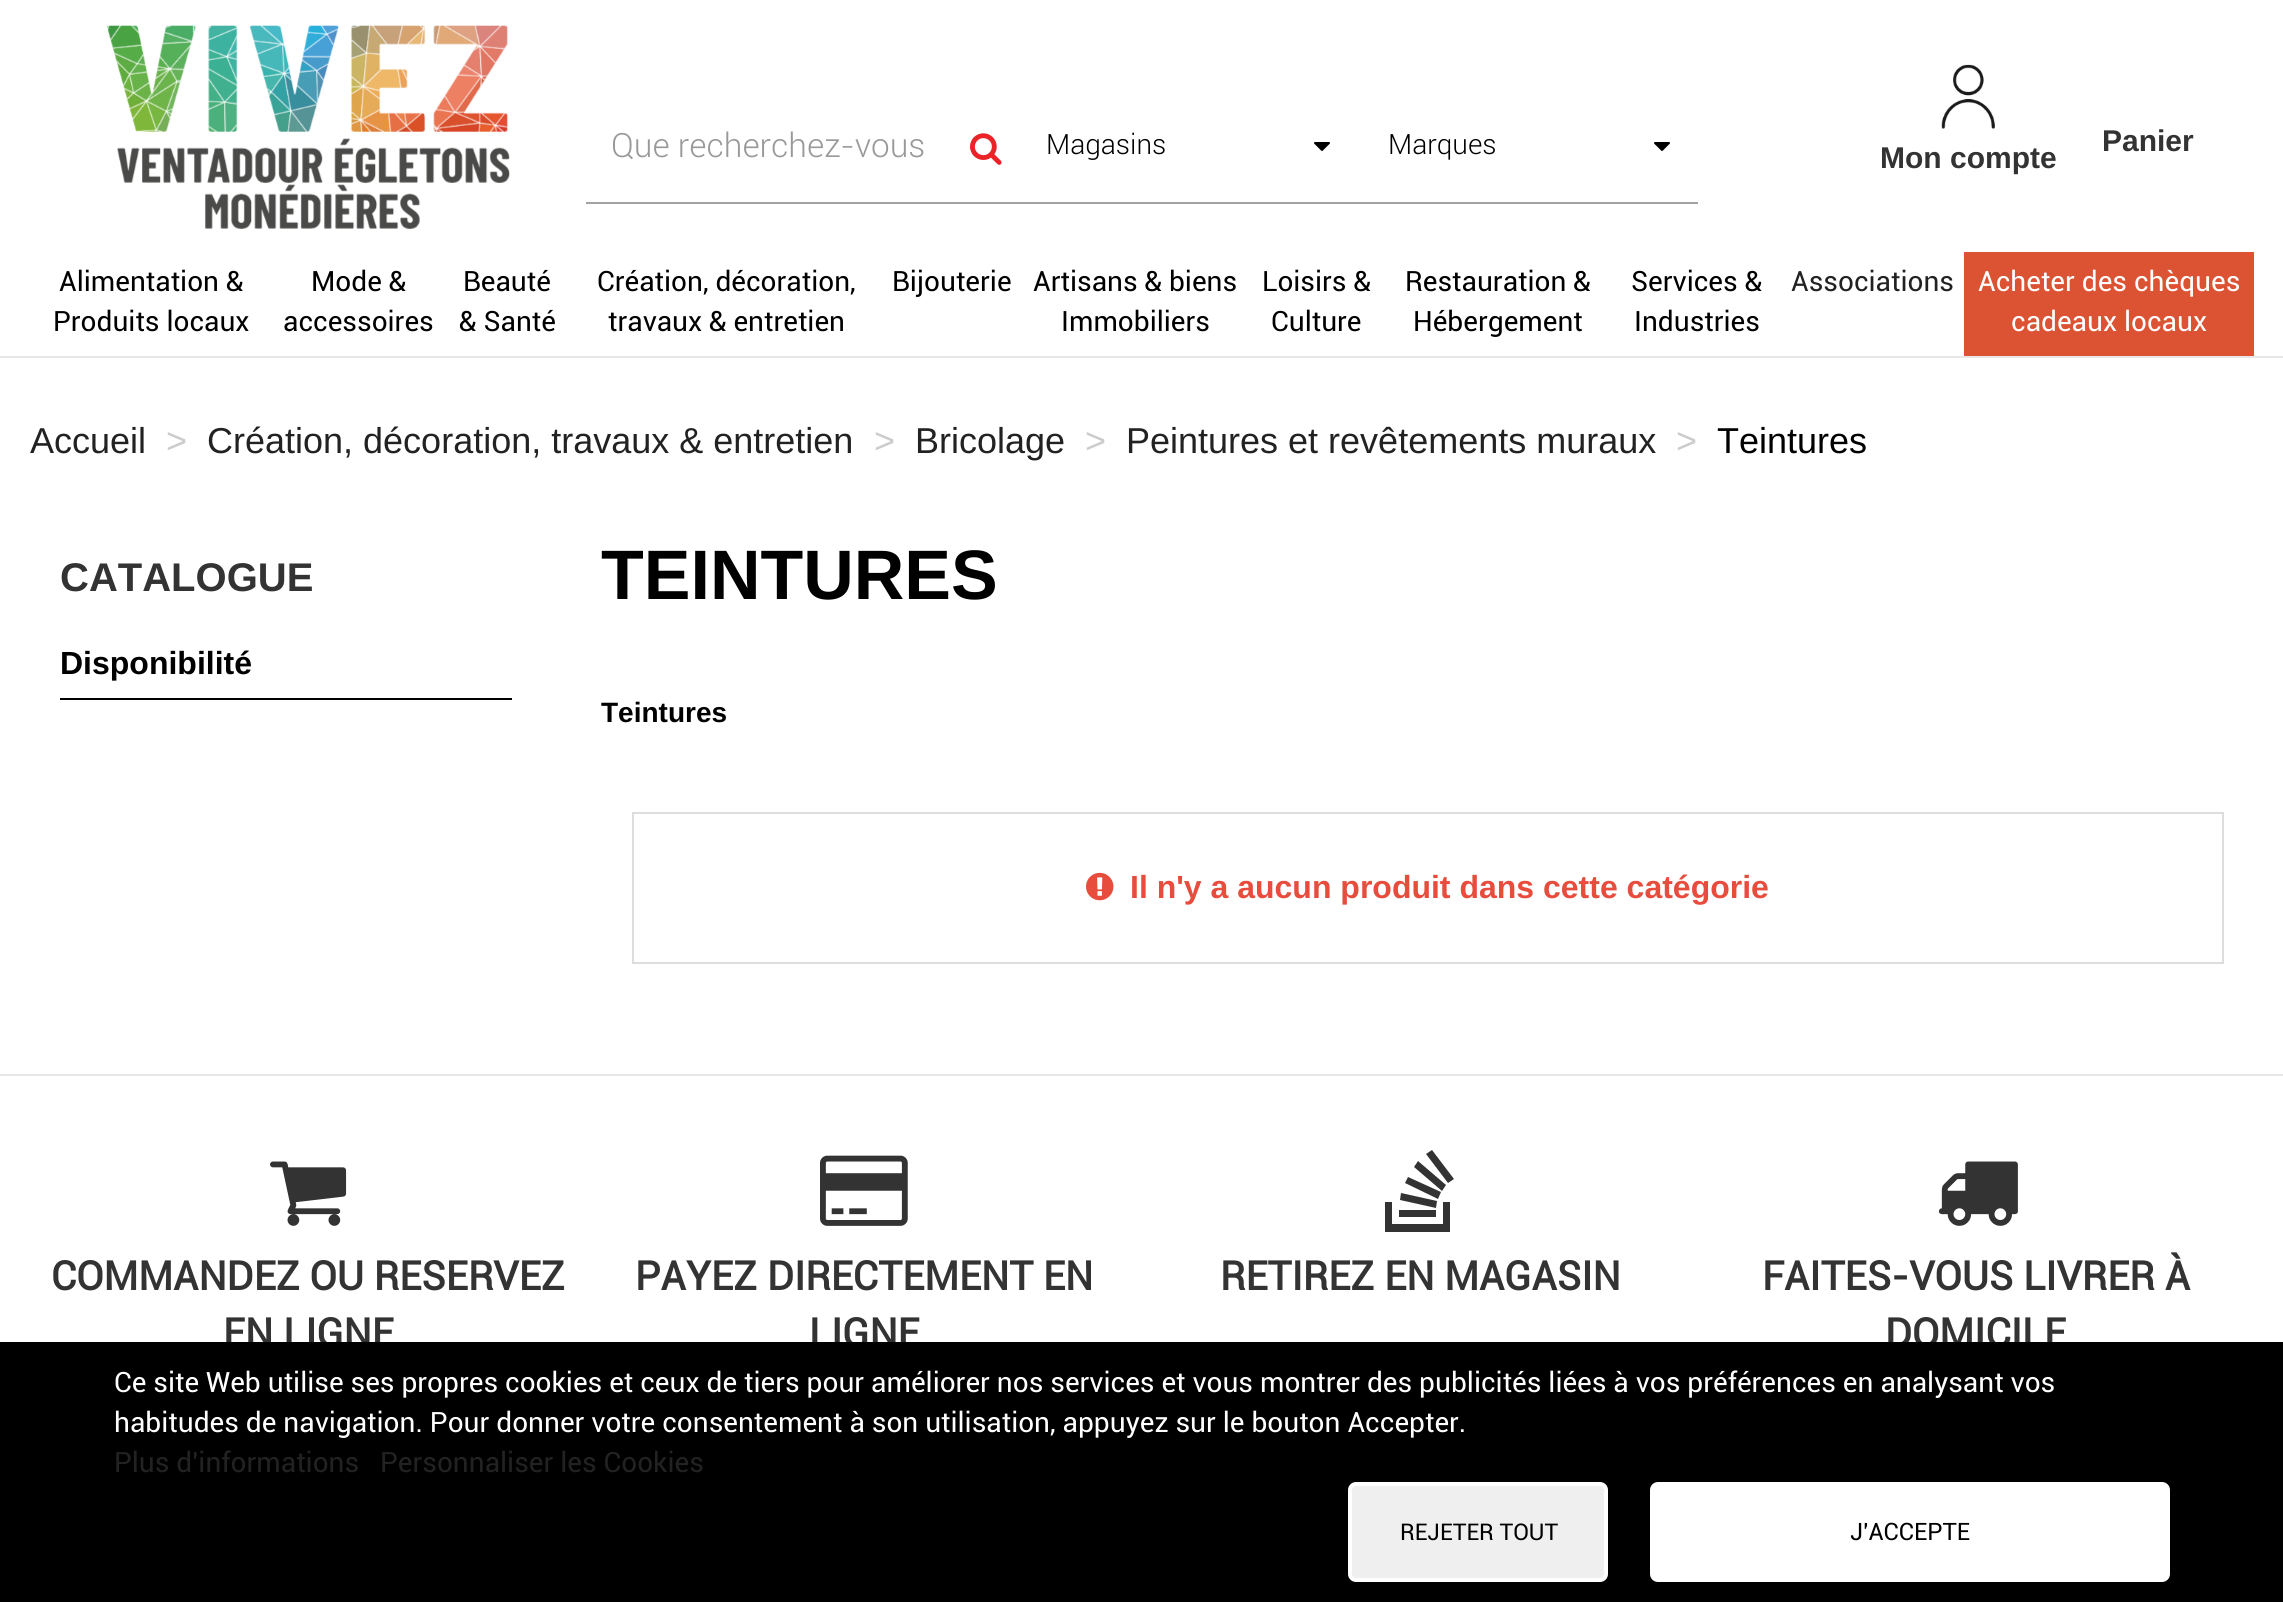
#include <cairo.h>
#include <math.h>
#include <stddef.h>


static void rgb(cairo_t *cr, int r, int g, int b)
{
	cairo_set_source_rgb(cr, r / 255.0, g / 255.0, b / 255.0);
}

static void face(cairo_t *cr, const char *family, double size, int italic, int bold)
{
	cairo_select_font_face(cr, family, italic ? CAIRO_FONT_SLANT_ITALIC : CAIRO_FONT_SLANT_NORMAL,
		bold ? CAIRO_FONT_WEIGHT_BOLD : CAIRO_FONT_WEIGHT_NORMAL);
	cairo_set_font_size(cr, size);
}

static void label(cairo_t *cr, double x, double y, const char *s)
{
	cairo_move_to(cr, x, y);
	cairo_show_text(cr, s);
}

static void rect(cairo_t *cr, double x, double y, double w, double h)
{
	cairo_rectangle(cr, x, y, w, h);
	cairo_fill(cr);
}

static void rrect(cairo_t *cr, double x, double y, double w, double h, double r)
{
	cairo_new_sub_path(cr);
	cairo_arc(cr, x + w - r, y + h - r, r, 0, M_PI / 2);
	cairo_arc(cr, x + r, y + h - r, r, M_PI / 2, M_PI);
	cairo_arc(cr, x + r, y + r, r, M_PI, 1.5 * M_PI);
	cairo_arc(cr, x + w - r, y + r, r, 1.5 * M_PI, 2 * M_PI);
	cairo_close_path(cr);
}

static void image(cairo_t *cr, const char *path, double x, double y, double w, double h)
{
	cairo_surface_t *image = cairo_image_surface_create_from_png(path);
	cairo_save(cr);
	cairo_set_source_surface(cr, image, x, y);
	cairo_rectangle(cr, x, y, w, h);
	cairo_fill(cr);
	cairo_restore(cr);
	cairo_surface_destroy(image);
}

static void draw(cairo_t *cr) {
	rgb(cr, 255, 255, 255);
	cairo_paint(cr);
	image(cr, "image0.png", 106, 25, 404, 205);
	face(cr, "Liberation Sans", 30, 0, 1);
	rgb(cr, 51, 51, 51);
	label(cr, 2102, 151, "Panier");
	image(cr, "image1.png", 1941, 64, 54, 65);
	label(cr, 1880, 168, "Mon compte");
	rgb(cr, 162, 162, 162);
	rect(cr, 586, 202, 1112, 2);
	face(cr, "Roboto Light", 33.5, 0, 0);
	rgb(cr, 153, 153, 153);
	label(cr, 611, 157, "Que recherchez-vous");
	image(cr, "image2.png", 970, 133, 32, 32);
	face(cr, "Roboto Light", 28, 0, 0);
	rgb(cr, 0, 0, 0);
	label(cr, 1046, 154, "Magasins");
	image(cr, "image3.png", 1314, 142, 16, 9);
	label(cr, 1388, 154, "Marques");
	image(cr, "image3.png", 1654, 142, 16, 9);
	rgb(cr, 231, 231, 231);
	rect(cr, 0, 356, 2283, 2);
	face(cr, "Roboto", 28, 0, 0);
	rgb(cr, 0, 0, 0);
	label(cr, 59, 291, "Alimentation &");
	label(cr, 53, 331, "Produits locaux");
	label(cr, 311, 291, "Mode &");
	label(cr, 283, 331, "accessoires");
	label(cr, 463, 291, "Beauté");
	label(cr, 459, 331, "& Santé");
	label(cr, 597, 291, "Création, décoration,");
	label(cr, 608, 331, "travaux & entretien");
	label(cr, 892, 291, "Bijouterie");
	label(cr, 1033, 291, "Artisans & biens");
	label(cr, 1061, 331, "Immobiliers");
	label(cr, 1262, 291, "Loisirs &");
	label(cr, 1271, 331, "Culture");
	label(cr, 1405, 291, "Restauration &");
	label(cr, 1413, 331, "Hébergement");
	label(cr, 1631, 291, "Services &");
	label(cr, 1634, 331, "Industries");
	rgb(cr, 34, 34, 34);
	label(cr, 1791, 291, "Associations");
	rgb(cr, 219, 83, 51);
	rect(cr, 1964, 252, 290, 104);
	rgb(cr, 255, 255, 255);
	label(cr, 1978, 291, "Acheter des chèques");
	label(cr, 2011, 331, "cadeaux locaux");
	face(cr, "Liberation Sans", 36, 0, 0);
	rgb(cr, 34, 34, 34);
	label(cr, 30, 453, "Accueil");
	rgb(cr, 204, 204, 204);
	label(cr, 166, 453, ">");
	rgb(cr, 34, 34, 34);
	label(cr, 207, 453, "Création, décoration, travaux & entretien");
	rgb(cr, 204, 204, 204);
	label(cr, 874, 453, ">");
	rgb(cr, 34, 34, 34);
	label(cr, 915, 453, "Bricolage");
	rgb(cr, 204, 204, 204);
	label(cr, 1085, 453, ">");
	rgb(cr, 34, 34, 34);
	label(cr, 1126, 453, "Peintures et revêtements muraux");
	rgb(cr, 204, 204, 204);
	label(cr, 1676, 453, ">");
	rgb(cr, 0, 0, 0);
	label(cr, 1717, 453, "Teintures");
	face(cr, "Liberation Sans", 40, 0, 1);
	rgb(cr, 51, 51, 51);
	label(cr, 60, 591, "CATALOGUE");
	rgb(cr, 0, 0, 0);
	rect(cr, 60, 698, 452, 2);
	face(cr, "Liberation Sans", 32, 0, 1);
	label(cr, 60, 674, "Disponibilité");
	face(cr, "Liberation Sans", 70, 0, 1);
	label(cr, 601, 599, "TEINTURES");
	face(cr, "Liberation Sans", 28, 0, 1);
	label(cr, 601, 722, "Teintures");
	cairo_rectangle(cr, 633, 813, 1590, 150);
	rgb(cr, 221, 221, 221);
	cairo_stroke(cr);
	image(cr, "image4.png", 1086, 872, 28, 29);
	face(cr, "Liberation Sans", 32, 0, 1);
	rgb(cr, 231, 76, 60);
	label(cr, 1130, 898, "Il n'y a aucun produit dans cette catégorie");
	rgb(cr, 231, 231, 231);
	rect(cr, 0, 1074, 2283, 2);
	image(cr, "image5.png", 270, 1161, 77, 65);
	face(cr, "Roboto", 40, 0, 1);
	rgb(cr, 51, 51, 51);
	label(cr, 51, 1290, "COMMANDEZ OU RESERVEZ");
	label(cr, 223, 1347, "EN LIGNE");
	image(cr, "image6.png", 820, 1155, 88, 71);
	label(cr, 635, 1290, "PAYEZ DIRECTEMENT EN");
	label(cr, 809, 1347, "LIGNE");
	cairo_new_path(cr);
	cairo_move_to(cr, 1443, 1224);
	cairo_line_to(cr, 1392, 1224);
	cairo_line_to(cr, 1392, 1202);
	cairo_line_to(cr, 1385, 1202);
	cairo_line_to(cr, 1385, 1232);
	cairo_line_to(cr, 1450, 1232);
	cairo_line_to(cr, 1450, 1202);
	cairo_line_to(cr, 1443, 1202);
	cairo_close_path(cr);
	cairo_move_to(cr, 1400, 1200);
	cairo_line_to(cr, 1401, 1193);
	cairo_line_to(cr, 1437, 1201);
	cairo_line_to(cr, 1436, 1208);
	cairo_close_path(cr);
	cairo_move_to(cr, 1405, 1183);
	cairo_line_to(cr, 1408, 1177);
	cairo_line_to(cr, 1441, 1192);
	cairo_line_to(cr, 1438, 1199);
	cairo_close_path(cr);
	cairo_move_to(cr, 1414, 1167);
	cairo_line_to(cr, 1418, 1161);
	cairo_line_to(cr, 1446, 1185);
	cairo_line_to(cr, 1442, 1191);
	cairo_close_path(cr);
	cairo_move_to(cr, 1432, 1150);
	cairo_line_to(cr, 1454, 1179);
	cairo_line_to(cr, 1448, 1183);
	cairo_line_to(cr, 1426, 1154);
	cairo_close_path(cr);
	cairo_move_to(cr, 1399, 1217);
	cairo_line_to(cr, 1399, 1210);
	cairo_line_to(cr, 1436, 1210);
	cairo_line_to(cr, 1436, 1217);
	cairo_close_path(cr);
	cairo_fill(cr);
	label(cr, 1220, 1290, "RETIREZ EN MAGASIN");
	image(cr, "image7.png", 1938, 1161, 80, 65);
	label(cr, 1762, 1290, "FAITES-VOUS LIVRER À");
	label(cr, 1885, 1347, "DOMICILE");
	rgb(cr, 0, 0, 0);
	rect(cr, 0, 1342, 2283, 260);
	face(cr, "Roboto", 28, 0, 0);
	rgb(cr, 255, 255, 255);
	label(cr, 114, 1392, "Ce site Web utilise ses propres cookies et ceux de tiers pour améliorer nos services et vous montrer des publicités liées à vos préférences en analysant vos");
	label(cr, 114, 1432, "habitudes de navigation. Pour donner votre consentement à son utilisation, appuyez sur le bouton Accepter.");
	rgb(cr, 34, 34, 34);
	label(cr, 114, 1472, "Plus d'informations");
	label(cr, 380, 1472, "Personnaliser les Cookies");
	rgb(cr, 239, 239, 239);
	rrect(cr, 1350, 1484, 256, 96, 6);
	cairo_fill_preserve(cr);
	rgb(cr, 255, 255, 255);
	cairo_set_line_width(cr, 4);
	cairo_stroke(cr);
	face(cr, "Roboto", 23, 0, 0);
	rgb(cr, 0, 0, 0);
	label(cr, 1400, 1540, "REJETER TOUT");
	rgb(cr, 255, 255, 255);
	rrect(cr, 1652, 1484, 516, 96, 6);
	cairo_fill_preserve(cr);
	cairo_stroke(cr);
	face(cr, "Roboto", 24, 0, 0);
	rgb(cr, 0, 0, 0);
	label(cr, 1850, 1540, "J'ACCEPTE");
}

int main(void) {
	cairo_surface_t *surface = cairo_image_surface_create(CAIRO_FORMAT_RGB24, 2283, 1602);
	cairo_t *cr = cairo_create(surface);
	cairo_font_options_t *options = cairo_font_options_create();
	cairo_font_options_set_hint_metrics(options, CAIRO_HINT_METRICS_OFF);
	cairo_font_options_set_hint_style(options, CAIRO_HINT_STYLE_NONE);
	cairo_set_font_options(cr, options);
	cairo_set_miter_limit(cr, 4);
	draw(cr);
	cairo_surface_write_to_png(surface, "render.png");
	cairo_font_options_destroy(options);
	cairo_destroy(cr);
	cairo_surface_destroy(surface);
	return 0;
}
